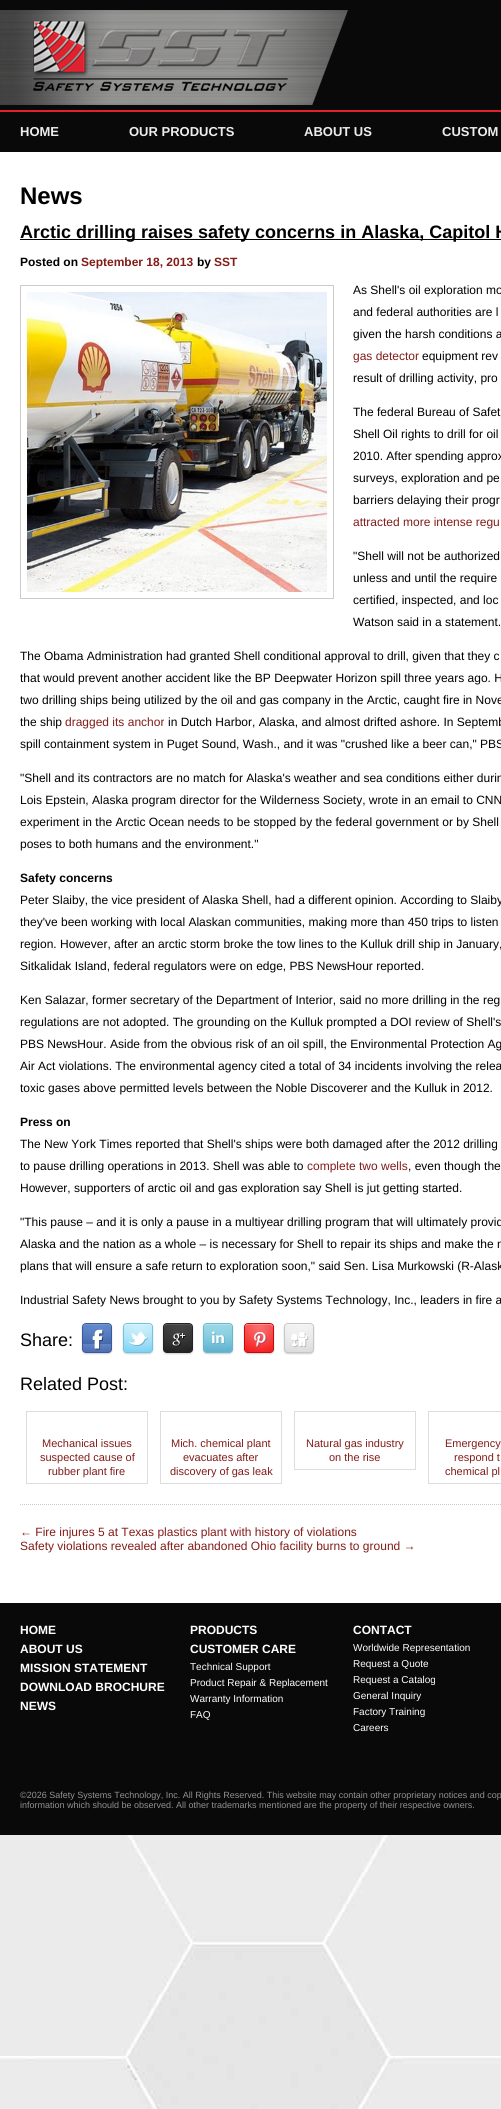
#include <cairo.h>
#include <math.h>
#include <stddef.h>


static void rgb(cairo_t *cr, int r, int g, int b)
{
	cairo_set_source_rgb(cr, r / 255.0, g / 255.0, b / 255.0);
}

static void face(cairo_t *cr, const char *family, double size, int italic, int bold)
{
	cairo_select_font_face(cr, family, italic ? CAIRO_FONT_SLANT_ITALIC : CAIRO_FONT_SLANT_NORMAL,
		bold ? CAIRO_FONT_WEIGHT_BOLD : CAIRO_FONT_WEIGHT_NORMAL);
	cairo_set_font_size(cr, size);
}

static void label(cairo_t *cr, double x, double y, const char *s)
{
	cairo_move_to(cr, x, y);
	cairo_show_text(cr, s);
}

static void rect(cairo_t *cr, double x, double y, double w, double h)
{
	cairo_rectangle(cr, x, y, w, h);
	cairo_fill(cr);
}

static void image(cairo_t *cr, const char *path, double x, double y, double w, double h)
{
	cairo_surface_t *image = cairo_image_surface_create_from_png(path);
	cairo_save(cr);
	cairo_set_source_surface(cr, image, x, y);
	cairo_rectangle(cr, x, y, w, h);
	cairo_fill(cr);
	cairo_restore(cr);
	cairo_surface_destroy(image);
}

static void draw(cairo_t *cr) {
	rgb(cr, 255, 255, 255);
	cairo_paint(cr);
	image(cr, "image0.png", 0, 1835, 501, 274);
	rgb(cr, 9, 9, 9);
	rect(cr, 0, 0, 501, 152);
	image(cr, "image1.png", 0, 10, 348, 95);
	image(cr, "image2.png", 33, 20, 255, 71);
	rgb(cr, 223, 33, 48);
	rect(cr, 0, 110, 501, 2);
	face(cr, "Liberation Sans", 13, 0, 1);
	rgb(cr, 236, 236, 236);
	label(cr, 20, 136, "HOME");
	label(cr, 129, 136, "OUR PRODUCTS");
	label(cr, 304, 136, "ABOUT US");
	label(cr, 442, 136, "CUSTOM");
	face(cr, "Liberation Sans", 24, 0, 1);
	rgb(cr, 0, 0, 0);
	label(cr, 20, 204, "News");
	cairo_new_path(cr);
	cairo_move_to(cr, 20, 1504.5);
	cairo_line_to(cr, 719, 1504.5);
	rgb(cr, 204, 204, 204);
	cairo_set_line_width(cr, 1);
	cairo_set_dash(cr, (double[]){1, 1}, 2, 0);
	cairo_stroke(cr);
	rgb(cr, 0, 0, 0);
	rect(cr, 20, 239, 481, 1);
	face(cr, "Liberation Sans", 18, 0, 1);
	label(cr, 20, 238, "Arctic drilling raises safety concerns in Alaska, Capitol H");
	face(cr, "Liberation Sans", 12, 0, 1);
	label(cr, 20, 266, "Posted on");
	rgb(cr, 130, 28, 25);
	label(cr, 81, 266, "September 18, 2013");
	rgb(cr, 0, 0, 0);
	label(cr, 197, 266, "by");
	rgb(cr, 130, 28, 25);
	label(cr, 214, 266, "SST");
	cairo_rectangle(cr, 20.5, 285.5, 313, 313);
	rgb(cr, 204, 204, 204);
	cairo_set_dash(cr, NULL, 0, 0);
	cairo_stroke(cr);
	image(cr, "image3.png", 27, 292, 300, 300);
	face(cr, "Liberation Sans", 12, 0, 0);
	rgb(cr, 0, 0, 0);
	label(cr, 353, 294, "As Shell's oil exploration mo");
	label(cr, 353, 316, "and federal authorities are l");
	label(cr, 353, 338, "given the harsh conditions a");
	rgb(cr, 130, 28, 25);
	label(cr, 353, 360, "gas detector");
	rgb(cr, 0, 0, 0);
	label(cr, 422, 360, "equipment rev");
	label(cr, 353, 382, "result of drilling activity, pro");
	label(cr, 353, 416, "The federal Bureau of Safet");
	label(cr, 353, 438, "Shell Oil rights to drill for oil");
	label(cr, 353, 460, "2010. After spending approx");
	label(cr, 353, 482, "surveys, exploration and pe");
	label(cr, 353, 504, "barriers delaying their progr");
	rgb(cr, 130, 28, 25);
	label(cr, 353, 526, "attracted more intense regu");
	rgb(cr, 0, 0, 0);
	label(cr, 353, 560, "\"Shell will not be authorized");
	label(cr, 353, 582, "unless and until the require");
	label(cr, 353, 604, "certified, inspected, and loc");
	label(cr, 353, 626, "Watson said in a statement.");
	label(cr, 20, 660, "The Obama Administration had granted Shell conditional approval to drill, given that they c");
	label(cr, 20, 682, "that would prevent another accident like the BP Deepwater Horizon spill three years ago. H");
	label(cr, 20, 704, "two drilling ships being utilized by the oil and gas company in the Arctic, caught fire in Nove");
	label(cr, 20, 726, "the ship");
	rgb(cr, 130, 28, 25);
	label(cr, 65, 726, "dragged its anchor");
	rgb(cr, 0, 0, 0);
	label(cr, 168, 726, "in Dutch Harbor, Alaska, and almost drifted ashore. In Septemb");
	label(cr, 20, 748, "spill containment system in Puget Sound, Wash., and it was \"crushed like a beer can,\" PBS");
	label(cr, 20, 782, "\"Shell and its contractors are no match for Alaska's weather and sea conditions either durin");
	label(cr, 20, 804, "Lois Epstein, Alaska program director for the Wilderness Society, wrote in an email to CNN");
	label(cr, 20, 826, "experiment in the Arctic Ocean needs to be stopped by the federal government or by Shell");
	label(cr, 20, 848, "poses to both humans and the environment.\"");
	face(cr, "Liberation Sans", 12, 0, 1);
	label(cr, 20, 882, "Safety concerns");
	face(cr, "Liberation Sans", 12, 0, 0);
	label(cr, 20, 904, "Peter Slaiby, the vice president of Alaska Shell, had a different opinion. According to Slaiby");
	label(cr, 20, 926, "they've been working with local Alaskan communities, making more than 450 trips to listen");
	label(cr, 20, 948, "region. However, after an arctic storm broke the tow lines to the Kulluk drill ship in January,");
	label(cr, 20, 970, "Sitkalidak Island, federal regulators were on edge, PBS NewsHour reported.");
	label(cr, 20, 1004, "Ken Salazar, former secretary of the Department of Interior, said no more drilling in the reg");
	label(cr, 20, 1026, "regulations are not adopted. The grounding on the Kulluk prompted a DOI review of Shell's");
	label(cr, 20, 1048, "PBS NewsHour. Aside from the obvious risk of an oil spill, the Environmental Protection Ag");
	label(cr, 20, 1070, "Air Act violations. The environmental agency cited a total of 34 incidents involving the relea");
	label(cr, 20, 1092, "toxic gases above permitted levels between the Noble Discoverer and the Kulluk in 2012.");
	face(cr, "Liberation Sans", 12, 0, 1);
	label(cr, 20, 1126, "Press on");
	face(cr, "Liberation Sans", 12, 0, 0);
	label(cr, 20, 1148, "The New York Times reported that Shell's ships were both damaged after the 2012 drilling");
	label(cr, 20, 1170, "to pause drilling operations in 2013. Shell was able to");
	rgb(cr, 130, 28, 25);
	label(cr, 307, 1170, "complete two wells");
	rgb(cr, 0, 0, 0);
	label(cr, 408, 1170, ", even though the");
	label(cr, 20, 1192, "However, supporters of arctic oil and gas exploration say Shell is jut getting started.");
	label(cr, 20, 1226, "\"This pause – and it is only a pause in a multiyear drilling program that will ultimately provid");
	label(cr, 20, 1248, "Alaska and the nation as a whole – is necessary for Shell to repair its ships and make the n");
	label(cr, 20, 1270, "plans that will ensure a safe return to exploration soon,\" said Sen. Lisa Murkowski (R-Alask");
	label(cr, 20, 1304, "Industrial Safety News brought to you by Safety Systems Technology, Inc., leaders in fire a");
	face(cr, "Liberation Sans", 18, 0, 0);
	label(cr, 20, 1346, "Share:");
	image(cr, "image4.png", 81, 1323, 32, 32);
	image(cr, "image5.png", 122, 1323, 32, 32);
	image(cr, "image6.png", 162, 1323, 32, 32);
	image(cr, "image7.png", 202, 1323, 32, 32);
	image(cr, "image8.png", 243, 1323, 32, 32);
	image(cr, "image9.png", 283, 1323, 32, 32);
	label(cr, 20, 1390, "Related Post:");
	cairo_rectangle(cr, 26.5, 1411.5, 121, 72);
	rgb(cr, 221, 221, 221);
	cairo_stroke(cr);
	face(cr, "Liberation Sans", 11, 0, 0);
	rgb(cr, 130, 28, 25);
	label(cr, 42, 1447, "Mechanical issues");
	label(cr, 40, 1461, "suspected cause of");
	label(cr, 48, 1475, "rubber plant fire");
	cairo_rectangle(cr, 160.5, 1411.5, 121, 72);
	rgb(cr, 221, 221, 221);
	cairo_stroke(cr);
	rgb(cr, 130, 28, 25);
	label(cr, 171, 1447, "Mich. chemical plant");
	label(cr, 183, 1461, "evacuates after");
	label(cr, 170, 1475, "discovery of gas leak");
	cairo_rectangle(cr, 294.5, 1411.5, 121, 58);
	rgb(cr, 221, 221, 221);
	cairo_stroke(cr);
	rgb(cr, 130, 28, 25);
	label(cr, 306, 1447, "Natural gas industry");
	label(cr, 329, 1461, "on the rise");
	cairo_rectangle(cr, 428.5, 1411.5, 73, 72);
	rgb(cr, 221, 221, 221);
	cairo_stroke(cr);
	rgb(cr, 130, 28, 25);
	label(cr, 445, 1447, "Emergency");
	label(cr, 454, 1461, "respond t");
	label(cr, 445, 1475, "chemical pl");
	face(cr, "Liberation Sans", 12, 0, 0);
	label(cr, 20, 1536, "← Fire injures 5 at Texas plastics plant with history of violations");
	label(cr, 20, 1550, "Safety violations revealed after abandoned Ohio facility burns to ground →");
	rgb(cr, 9, 9, 9);
	rect(cr, 0, 1603, 501, 232);
	face(cr, "Liberation Sans", 12, 0, 1);
	rgb(cr, 255, 255, 255);
	label(cr, 20, 1634, "HOME");
	label(cr, 20, 1653, "ABOUT US");
	label(cr, 20, 1672, "MISSION STATEMENT");
	label(cr, 20, 1691, "DOWNLOAD BROCHURE");
	label(cr, 20, 1710, "NEWS");
	label(cr, 190, 1634, "PRODUCTS");
	label(cr, 190, 1653, "CUSTOMER CARE");
	face(cr, "Liberation Sans", 10, 0, 0);
	label(cr, 190, 1670, "Technical Support");
	label(cr, 190, 1686, "Product Repair & Replacement");
	label(cr, 190, 1702, "Warranty Information");
	label(cr, 190, 1718, "FAQ");
	face(cr, "Liberation Sans", 12, 0, 1);
	label(cr, 353, 1634, "CONTACT");
	face(cr, "Liberation Sans", 10, 0, 0);
	label(cr, 353, 1651, "Worldwide Representation");
	label(cr, 353, 1667, "Request a Quote");
	label(cr, 353, 1683, "Request a Catalog");
	label(cr, 353, 1699, "General Inquiry");
	label(cr, 353, 1715, "Factory Training");
	label(cr, 353, 1731, "Careers");
	face(cr, "Liberation Sans", 9, 0, 0);
	rgb(cr, 145, 145, 145);
	label(cr, 20, 1798, "©2026 Safety Systems Technology, Inc. All Rights Reserved. This website may contain other proprietary notices and cop");
	label(cr, 20, 1808, "information which should be observed. All other trademarks mentioned are the property of their respective owners.");
}

int main(void) {
	cairo_surface_t *surface = cairo_image_surface_create(CAIRO_FORMAT_RGB24, 501, 2109);
	cairo_t *cr = cairo_create(surface);
	cairo_font_options_t *options = cairo_font_options_create();
	cairo_font_options_set_hint_metrics(options, CAIRO_HINT_METRICS_OFF);
	cairo_font_options_set_hint_style(options, CAIRO_HINT_STYLE_NONE);
	cairo_set_font_options(cr, options);
	cairo_set_miter_limit(cr, 4);
	draw(cr);
	cairo_surface_write_to_png(surface, "render.png");
	cairo_font_options_destroy(options);
	cairo_destroy(cr);
	cairo_surface_destroy(surface);
	return 0;
}
